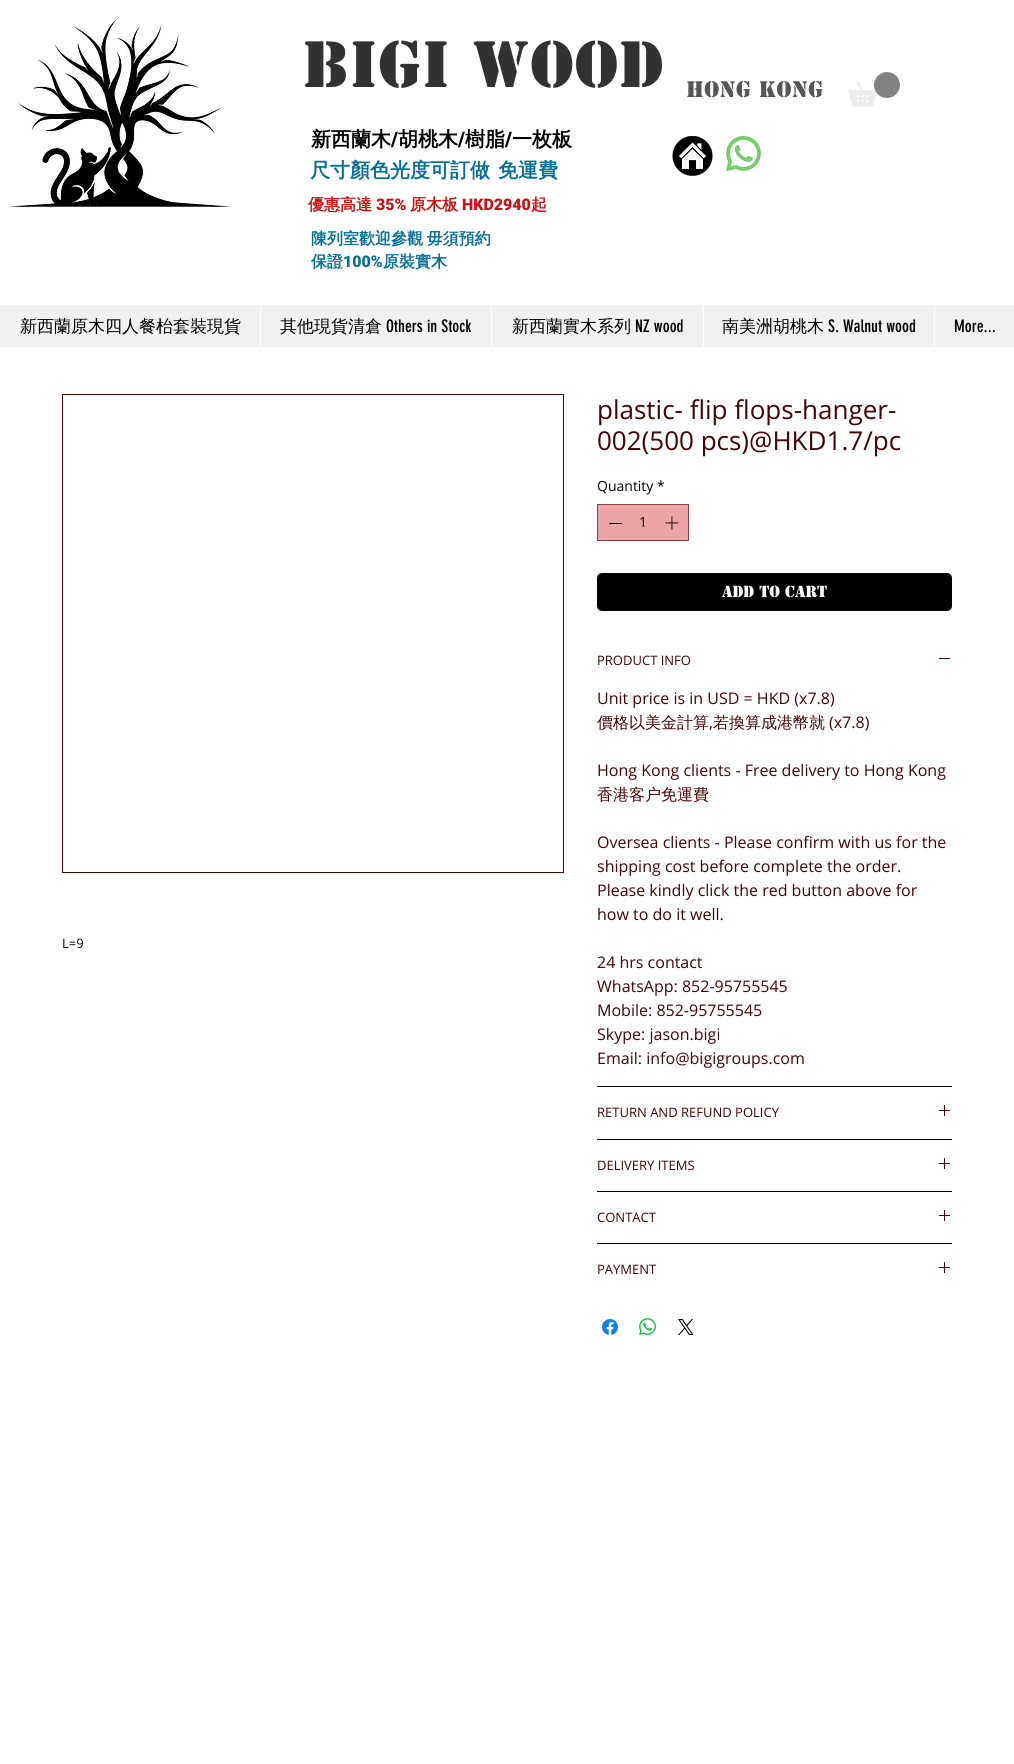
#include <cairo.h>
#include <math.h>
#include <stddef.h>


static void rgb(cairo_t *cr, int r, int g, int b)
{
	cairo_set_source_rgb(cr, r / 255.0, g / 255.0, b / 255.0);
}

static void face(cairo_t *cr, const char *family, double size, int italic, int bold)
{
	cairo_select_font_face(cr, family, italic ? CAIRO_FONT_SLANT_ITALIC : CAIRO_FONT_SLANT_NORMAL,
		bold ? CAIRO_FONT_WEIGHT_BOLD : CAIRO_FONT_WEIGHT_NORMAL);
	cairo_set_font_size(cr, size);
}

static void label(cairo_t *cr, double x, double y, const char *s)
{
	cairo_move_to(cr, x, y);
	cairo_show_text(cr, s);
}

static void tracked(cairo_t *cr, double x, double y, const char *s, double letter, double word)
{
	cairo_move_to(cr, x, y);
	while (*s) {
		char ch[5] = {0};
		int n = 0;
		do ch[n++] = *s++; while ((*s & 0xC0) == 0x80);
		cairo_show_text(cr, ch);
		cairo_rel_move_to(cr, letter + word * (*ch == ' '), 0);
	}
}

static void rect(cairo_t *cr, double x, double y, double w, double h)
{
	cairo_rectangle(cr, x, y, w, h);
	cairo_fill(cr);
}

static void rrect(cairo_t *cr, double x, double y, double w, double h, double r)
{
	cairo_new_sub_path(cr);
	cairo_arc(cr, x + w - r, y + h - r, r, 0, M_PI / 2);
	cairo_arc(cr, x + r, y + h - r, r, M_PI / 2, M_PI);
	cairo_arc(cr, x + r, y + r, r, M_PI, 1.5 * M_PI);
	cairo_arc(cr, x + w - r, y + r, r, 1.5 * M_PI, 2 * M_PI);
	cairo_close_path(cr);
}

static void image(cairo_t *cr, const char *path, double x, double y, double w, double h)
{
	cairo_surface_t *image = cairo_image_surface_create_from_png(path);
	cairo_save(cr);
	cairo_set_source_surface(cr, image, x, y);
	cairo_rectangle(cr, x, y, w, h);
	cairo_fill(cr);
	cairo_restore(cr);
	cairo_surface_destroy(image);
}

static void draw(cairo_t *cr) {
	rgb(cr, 255, 255, 255);
	cairo_paint(cr);
	image(cr, "image0.png", 9, 19, 222, 189);
	face(cr, "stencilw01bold", 61, 0, 1);
	rgb(cr, 50, 50, 50);
	tracked(cr, 303, 87, "BIGI wood", 1.25, 0);
	face(cr, "stencilw01bold", 21, 0, 1);
	rgb(cr, 86, 86, 86);
	tracked(cr, 686, 97, "Hong Kong", 0.5, 0);
	image(cr, "image1.png", 848, 72, 52, 35);
	face(cr, "WenQuanYi Zen Hei", 20, 0, 1);
	rgb(cr, 0, 0, 0);
	label(cr, 311, 146, "新西蘭木");
	face(cr, "Roboto Black", 20, 0, 0);
	label(cr, 391, 146, "/");
	face(cr, "WenQuanYi Zen Hei", 20, 0, 1);
	label(cr, 398, 146, "胡桃木");
	face(cr, "Roboto Black", 20, 0, 0);
	label(cr, 458, 146, "/");
	face(cr, "WenQuanYi Zen Hei", 20, 0, 1);
	label(cr, 465, 146, "樹脂");
	face(cr, "Roboto Black", 20, 0, 0);
	label(cr, 505, 146, "/");
	face(cr, "WenQuanYi Zen Hei", 20, 0, 1);
	label(cr, 512, 146, "一枚板");
	image(cr, "image2.png", 672, 136, 41, 40);
	image(cr, "image3.png", 726, 136, 35, 35);
	rgb(cr, 8, 112, 149);
	label(cr, 310, 177, "尺寸顏色光度可訂做");
	label(cr, 498, 177, "免運費");
	face(cr, "WenQuanYi Zen Hei", 16, 0, 1);
	rgb(cr, 204, 16, 19);
	label(cr, 308, 210, "優惠高達");
	face(cr, "Roboto Black", 16, 0, 0);
	label(cr, 376, 210, "35%");
	face(cr, "WenQuanYi Zen Hei", 16, 0, 1);
	label(cr, 410, 210, "原木板");
	face(cr, "Roboto Black", 16, 0, 0);
	label(cr, 462, 210, "HKD2940");
	face(cr, "WenQuanYi Zen Hei", 16, 0, 1);
	label(cr, 531, 210, "起");
	rgb(cr, 8, 112, 149);
	tracked(cr, 311, 244, "陳列室歡迎參觀 毋須預約", 0, -1);
	label(cr, 311, 267, "保證");
	face(cr, "Roboto Black", 16, 0, 0);
	label(cr, 343, 267, "100%");
	face(cr, "WenQuanYi Zen Hei", 16, 0, 1);
	label(cr, 383, 267, "原裝實木");
	rgb(cr, 241, 241, 241);
	rect(cr, 0, 305, 1014, 42);
	face(cr, "WenQuanYi Zen Hei Medium", 17, 0, 0);
	rgb(cr, 0, 0, 0);
	label(cr, 20, 332, "新西蘭原木四人餐枱套裝現貨");
	rgb(cr, 255, 255, 255);
	rect(cr, 260, 305, 1, 42);
	rgb(cr, 0, 0, 0);
	label(cr, 280, 332, "其他現貨清倉");
	face(cr, "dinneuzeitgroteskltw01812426", 17, 0, 0);
	label(cr, 386, 332, "Others in Stock");
	rgb(cr, 255, 255, 255);
	rect(cr, 491, 305, 1, 42);
	face(cr, "WenQuanYi Zen Hei Medium", 17, 0, 0);
	rgb(cr, 0, 0, 0);
	label(cr, 512, 332, "新西蘭實木系列");
	face(cr, "dinneuzeitgroteskltw01812426", 17, 0, 0);
	label(cr, 635, 332, "NZ wood");
	rgb(cr, 255, 255, 255);
	rect(cr, 703, 305, 1, 42);
	face(cr, "WenQuanYi Zen Hei Medium", 17, 0, 0);
	rgb(cr, 0, 0, 0);
	label(cr, 722, 332, "南美洲胡桃木");
	face(cr, "dinneuzeitgroteskltw01812426", 17, 0, 0);
	label(cr, 828, 332, "S. Walnut wood");
	rgb(cr, 255, 255, 255);
	rect(cr, 934, 305, 1, 42);
	rgb(cr, 0, 0, 0);
	label(cr, 954, 332, "More...");
	cairo_rectangle(cr, 62.5, 394.5, 501, 478);
	rgb(cr, 68, 5, 6);
	cairo_set_line_width(cr, 1);
	cairo_stroke(cr);
	face(cr, "Open Sans", 13, 0, 0);
	rgb(cr, 0, 0, 0);
	label(cr, 62, 948, "L=9");
	face(cr, "Open Sans", 26, 0, 0);
	rgb(cr, 68, 5, 6);
	label(cr, 597, 419, "plastic- flip flops-hanger-");
	label(cr, 597, 450, "002(500 pcs)@HKD1.7/pc");
	face(cr, "Open Sans", 14, 0, 0);
	rgb(cr, 0, 0, 0);
	label(cr, 597, 491, "Quantity");
	label(cr, 657, 491, "*");
	rgb(cr, 237, 165, 166);
	cairo_rectangle(cr, 597.5, 504.5, 91, 36);
	cairo_fill_preserve(cr);
	rgb(cr, 136, 69, 70);
	cairo_stroke(cr);
	rgb(cr, 0, 0, 0);
	rect(cr, 609, 523, 13, 1);
	label(cr, 639, 527, "1");
	image(cr, "image4.png", 665, 516, 14, 14);
	rrect(cr, 597, 573, 355, 38, 5);
	cairo_fill(cr);
	face(cr, "stencilw01bold", 15, 0, 1);
	rgb(cr, 255, 255, 255);
	label(cr, 722, 597, "ADD TO CART");
	rgb(cr, 0, 0, 0);
	rect(cr, 597, 1086, 355, 1);
	face(cr, "Open Sans", 13, 0, 0);
	rgb(cr, 68, 5, 6);
	label(cr, 597, 665, "PRODUCT INFO");
	rect(cr, 939, 658, 11, 1);
	face(cr, "Open Sans", 16, 0, 0);
	label(cr, 597, 704, "Unit price is in USD = HKD (x7.8)");
	face(cr, "WenQuanYi Zen Hei Medium", 16, 0, 0);
	label(cr, 597, 728, "價格以美金計算");
	face(cr, "Open Sans", 16, 0, 0);
	label(cr, 709, 728, ",");
	face(cr, "WenQuanYi Zen Hei Medium", 16, 0, 0);
	label(cr, 713, 728, "若換算成港幣就");
	face(cr, "Open Sans", 16, 0, 0);
	label(cr, 829, 728, "(x7.8)");
	label(cr, 597, 776, "Hong Kong clients - Free delivery to Hong Kong");
	face(cr, "WenQuanYi Zen Hei Medium", 16, 0, 0);
	label(cr, 597, 800, "香港客户免運費");
	face(cr, "Open Sans", 16, 0, 0);
	label(cr, 597, 848, "Oversea clients - Please confirm with us for the");
	label(cr, 597, 872, "shipping cost before complete the order.");
	label(cr, 597, 896, "Please kindly click the red button above for");
	label(cr, 597, 920, "how to do it well.");
	label(cr, 597, 968, "24 hrs contact");
	label(cr, 597, 992, "WhatsApp: 852-95755545");
	label(cr, 597, 1016, "Mobile: 852-95755545");
	label(cr, 597, 1040, "Skype: jason.bigi");
	label(cr, 597, 1064, "Email: info@bigigroups.com");
	rgb(cr, 0, 0, 0);
	rect(cr, 597, 1139, 355, 1);
	face(cr, "Open Sans", 13, 0, 0);
	rgb(cr, 68, 5, 6);
	label(cr, 597, 1117, "RETURN AND REFUND POLICY");
	image(cr, "image5.png", 939, 1105, 11, 11);
	rgb(cr, 0, 0, 0);
	rect(cr, 597, 1191, 355, 1);
	rgb(cr, 68, 5, 6);
	label(cr, 597, 1170, "DELIVERY ITEMS");
	image(cr, "image5.png", 939, 1158, 11, 11);
	rgb(cr, 0, 0, 0);
	rect(cr, 597, 1243, 355, 1);
	rgb(cr, 68, 5, 6);
	label(cr, 597, 1222, "CONTACT");
	image(cr, "image5.png", 939, 1210, 11, 11);
	label(cr, 597, 1274, "PAYMENT");
	image(cr, "image5.png", 939, 1262, 11, 11);
	image(cr, "image6.png", 602, 1319, 16, 16);
	image(cr, "image7.png", 639, 1318, 17, 17);
	image(cr, "image8.png", 678, 1319, 16, 16);
}

int main(void) {
	cairo_surface_t *surface = cairo_image_surface_create(CAIRO_FORMAT_RGB24, 1014, 1764);
	cairo_t *cr = cairo_create(surface);
	cairo_font_options_t *options = cairo_font_options_create();
	cairo_font_options_set_hint_metrics(options, CAIRO_HINT_METRICS_OFF);
	cairo_font_options_set_hint_style(options, CAIRO_HINT_STYLE_NONE);
	cairo_set_font_options(cr, options);
	cairo_set_miter_limit(cr, 4);
	draw(cr);
	cairo_surface_write_to_png(surface, "render.png");
	cairo_font_options_destroy(options);
	cairo_destroy(cr);
	cairo_surface_destroy(surface);
	return 0;
}
